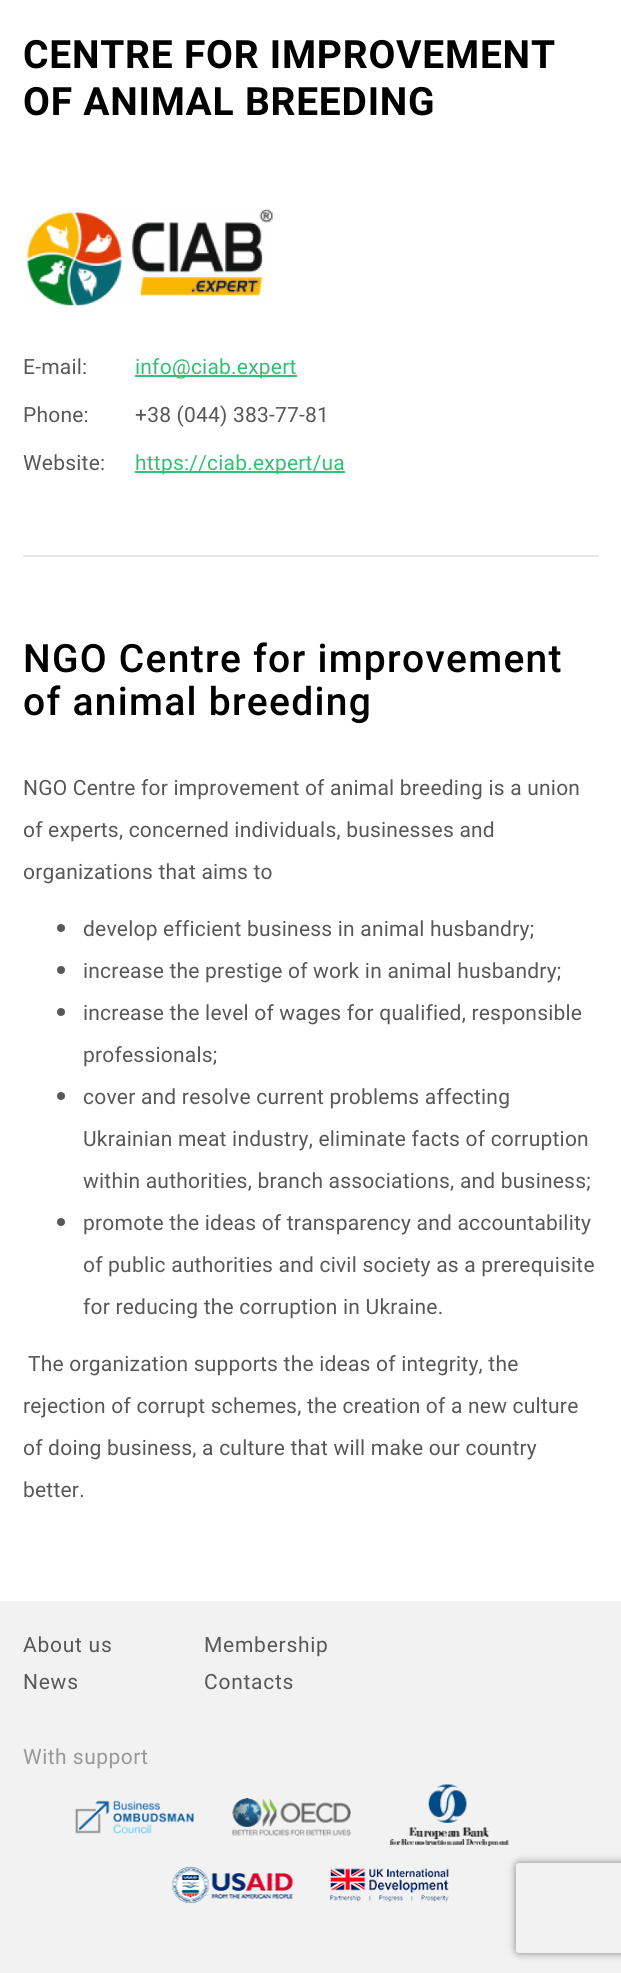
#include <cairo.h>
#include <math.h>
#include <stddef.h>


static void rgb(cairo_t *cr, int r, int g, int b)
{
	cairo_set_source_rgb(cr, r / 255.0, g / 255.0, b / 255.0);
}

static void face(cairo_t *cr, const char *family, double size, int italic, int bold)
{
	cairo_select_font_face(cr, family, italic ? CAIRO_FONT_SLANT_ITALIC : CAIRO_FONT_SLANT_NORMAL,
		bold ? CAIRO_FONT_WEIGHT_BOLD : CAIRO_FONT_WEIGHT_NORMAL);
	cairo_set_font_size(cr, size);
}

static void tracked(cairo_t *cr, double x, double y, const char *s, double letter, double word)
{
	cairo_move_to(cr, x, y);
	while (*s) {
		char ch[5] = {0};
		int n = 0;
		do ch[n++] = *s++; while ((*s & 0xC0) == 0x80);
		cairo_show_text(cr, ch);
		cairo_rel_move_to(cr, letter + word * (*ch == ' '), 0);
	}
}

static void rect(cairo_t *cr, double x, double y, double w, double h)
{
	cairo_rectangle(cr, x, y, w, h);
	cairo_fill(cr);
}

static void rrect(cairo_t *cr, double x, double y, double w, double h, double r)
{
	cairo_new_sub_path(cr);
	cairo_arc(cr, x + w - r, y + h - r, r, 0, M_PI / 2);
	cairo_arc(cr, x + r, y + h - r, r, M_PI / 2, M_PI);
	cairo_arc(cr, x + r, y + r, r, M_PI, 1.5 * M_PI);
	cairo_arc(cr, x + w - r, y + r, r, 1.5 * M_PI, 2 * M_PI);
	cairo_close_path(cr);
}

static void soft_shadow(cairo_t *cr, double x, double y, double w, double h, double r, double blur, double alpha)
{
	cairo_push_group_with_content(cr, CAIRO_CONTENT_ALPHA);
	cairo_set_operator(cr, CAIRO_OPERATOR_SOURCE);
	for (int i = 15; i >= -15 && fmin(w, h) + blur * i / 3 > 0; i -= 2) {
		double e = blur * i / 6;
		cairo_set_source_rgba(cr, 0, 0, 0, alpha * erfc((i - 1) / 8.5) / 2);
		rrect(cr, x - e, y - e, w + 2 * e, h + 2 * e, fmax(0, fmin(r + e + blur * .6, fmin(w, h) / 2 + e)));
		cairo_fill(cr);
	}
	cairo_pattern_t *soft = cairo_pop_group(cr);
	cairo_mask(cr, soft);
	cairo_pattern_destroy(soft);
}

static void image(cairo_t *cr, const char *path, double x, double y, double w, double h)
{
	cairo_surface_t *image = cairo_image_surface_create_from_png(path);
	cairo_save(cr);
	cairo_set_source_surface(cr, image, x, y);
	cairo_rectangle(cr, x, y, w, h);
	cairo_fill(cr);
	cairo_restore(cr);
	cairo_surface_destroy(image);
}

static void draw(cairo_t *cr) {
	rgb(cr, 255, 255, 255);
	cairo_paint(cr);
	face(cr, "Roboto", 39, 0, 1);
	rgb(cr, 0, 0, 0);
	tracked(cr, 23, 68, "CENTRE FOR IMPROVEMENT", 0.75, 0);
	tracked(cr, 23, 115, "OF ANIMAL BREEDING", 0.75, 0);
	image(cr, "image0.png", 27, 209, 246, 97);
	face(cr, "Roboto", 21, 0, 0);
	rgb(cr, 88, 88, 88);
	tracked(cr, 23, 374, "E-mail:", 0.22, 0);
	rgb(cr, 48, 193, 117);
	rect(cr, 135, 375, 162, 2);
	tracked(cr, 135, 374, "info@ciab.expert", 0.22, 0);
	rgb(cr, 88, 88, 88);
	tracked(cr, 23, 422, "Phone:", 0.22, 0);
	tracked(cr, 135, 422, "+38 (044) 383-77-81", 0.22, 0);
	tracked(cr, 23, 470, "Website:", 0.22, 0);
	rgb(cr, 48, 193, 117);
	rect(cr, 135, 471, 210, 2);
	tracked(cr, 135, 470, "https://ciab.expert/ua", 0.22, 0);
	rgb(cr, 232, 232, 232);
	rect(cr, 23, 555, 576, 2);
	face(cr, "Roboto Medium", 39, 0, 0);
	rgb(cr, 0, 0, 0);
	tracked(cr, 23, 672, "NGO Centre for improvement", 1.25, 0);
	tracked(cr, 23, 715, "of animal breeding", 1.25, 0);
	face(cr, "Roboto", 21, 0, 0);
	rgb(cr, 88, 88, 88);
	tracked(cr, 23, 795, "NGO Centre for improvement of animal breeding is a union", 0.22, 0);
	tracked(cr, 23, 837, "of experts, concerned individuals, businesses and", 0.22, 0);
	tracked(cr, 23, 879, "organizations that aims to", 0.22, 0);
	cairo_new_path(cr);
	cairo_arc(cr, 61, 928, 4, 0, 2 * M_PI);
	cairo_fill(cr);
	tracked(cr, 83, 936, "develop efficient business in animal husbandry;", 0.22, 0);
	cairo_new_path(cr);
	cairo_arc(cr, 61, 970, 4, 0, 2 * M_PI);
	cairo_fill(cr);
	tracked(cr, 83, 978, "increase the prestige of work in animal husbandry;", 0.22, 0);
	cairo_new_path(cr);
	cairo_arc(cr, 61, 1012, 4, 0, 2 * M_PI);
	cairo_fill(cr);
	tracked(cr, 83, 1020, "increase the level of wages for qualified, responsible", 0.22, 0);
	tracked(cr, 83, 1062, "professionals;", 0.22, 0);
	cairo_new_path(cr);
	cairo_arc(cr, 61, 1096, 4, 0, 2 * M_PI);
	cairo_fill(cr);
	tracked(cr, 83, 1104, "cover and resolve current problems affecting", 0.22, 0);
	tracked(cr, 83, 1146, "Ukrainian meat industry, eliminate facts of corruption", 0.22, 0);
	tracked(cr, 83, 1188, "within authorities, branch associations, and business;", 0.22, 0);
	cairo_new_path(cr);
	cairo_arc(cr, 61, 1222, 4, 0, 2 * M_PI);
	cairo_fill(cr);
	tracked(cr, 83, 1230, "promote the ideas of transparency and accountability", 0.22, 0);
	tracked(cr, 83, 1272, "of public authorities and civil society as a prerequisite", 0.22, 0);
	tracked(cr, 83, 1314, "for reducing the corruption in Ukraine.", 0.22, 0);
	tracked(cr, 28, 1371, "The organization supports the ideas of integrity, the", 0.22, 0);
	tracked(cr, 23, 1413, "rejection of corrupt schemes, the creation of a new culture", 0.22, 0);
	tracked(cr, 23, 1455, "of doing business, a culture that will make our country", 0.22, 0);
	tracked(cr, 23, 1497, "better.", 0.22, 0);
	rgb(cr, 242, 242, 242);
	rect(cr, 0, 1601, 621, 372);
	rgb(cr, 88, 88, 88);
	tracked(cr, 23, 1652, "About us", 0.75, 0);
	tracked(cr, 204, 1652, "Membership", 0.75, 0);
	tracked(cr, 23, 1689, "News", 0.75, 0);
	tracked(cr, 204, 1689, "Contacts", 0.75, 0);
	rgb(cr, 152, 152, 152);
	tracked(cr, 23, 1764, "With support", 0.5, 0);
	image(cr, "image1.png", 75, 1800, 119, 34);
	image(cr, "image2.png", 232, 1798, 119, 38);
	image(cr, "image3.png", 390, 1784, 119, 62);
	image(cr, "image4.png", 172, 1867, 121, 36);
	image(cr, "image5.png", 330, 1868, 119, 34);
	cairo_save(cr);
	cairo_set_fill_rule(cr, CAIRO_FILL_RULE_EVEN_ODD);
	cairo_new_path(cr);
	cairo_move_to(cr, 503, 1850);
	cairo_line_to(cr, 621, 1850);
	cairo_line_to(cr, 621, 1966);
	cairo_line_to(cr, 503, 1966);
	cairo_close_path(cr);
	cairo_move_to(cr, 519, 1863);
	cairo_line_to(cr, 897, 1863);
	cairo_curve_to(cr, 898.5, 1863, 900, 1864.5, 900, 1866);
	cairo_line_to(cr, 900, 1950);
	cairo_curve_to(cr, 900, 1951.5, 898.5, 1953, 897, 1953);
	cairo_line_to(cr, 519, 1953);
	cairo_curve_to(cr, 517.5, 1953, 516, 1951.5, 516, 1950);
	cairo_line_to(cr, 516, 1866);
	cairo_curve_to(cr, 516, 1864.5, 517.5, 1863, 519, 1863);
	cairo_close_path(cr);
	cairo_clip(cr);
	rgb(cr, 128, 128, 128);
	soft_shadow(cr, 516, 1863, 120, 90, 3, 4, 1);
	cairo_restore(cr);
}

int main(void) {
	cairo_surface_t *surface = cairo_image_surface_create(CAIRO_FORMAT_RGB24, 621, 1973);
	cairo_t *cr = cairo_create(surface);
	cairo_font_options_t *options = cairo_font_options_create();
	cairo_font_options_set_hint_metrics(options, CAIRO_HINT_METRICS_OFF);
	cairo_font_options_set_hint_style(options, CAIRO_HINT_STYLE_NONE);
	cairo_set_font_options(cr, options);
	cairo_set_miter_limit(cr, 4);
	draw(cr);
	cairo_surface_write_to_png(surface, "render.png");
	cairo_font_options_destroy(options);
	cairo_destroy(cr);
	cairo_surface_destroy(surface);
	return 0;
}
